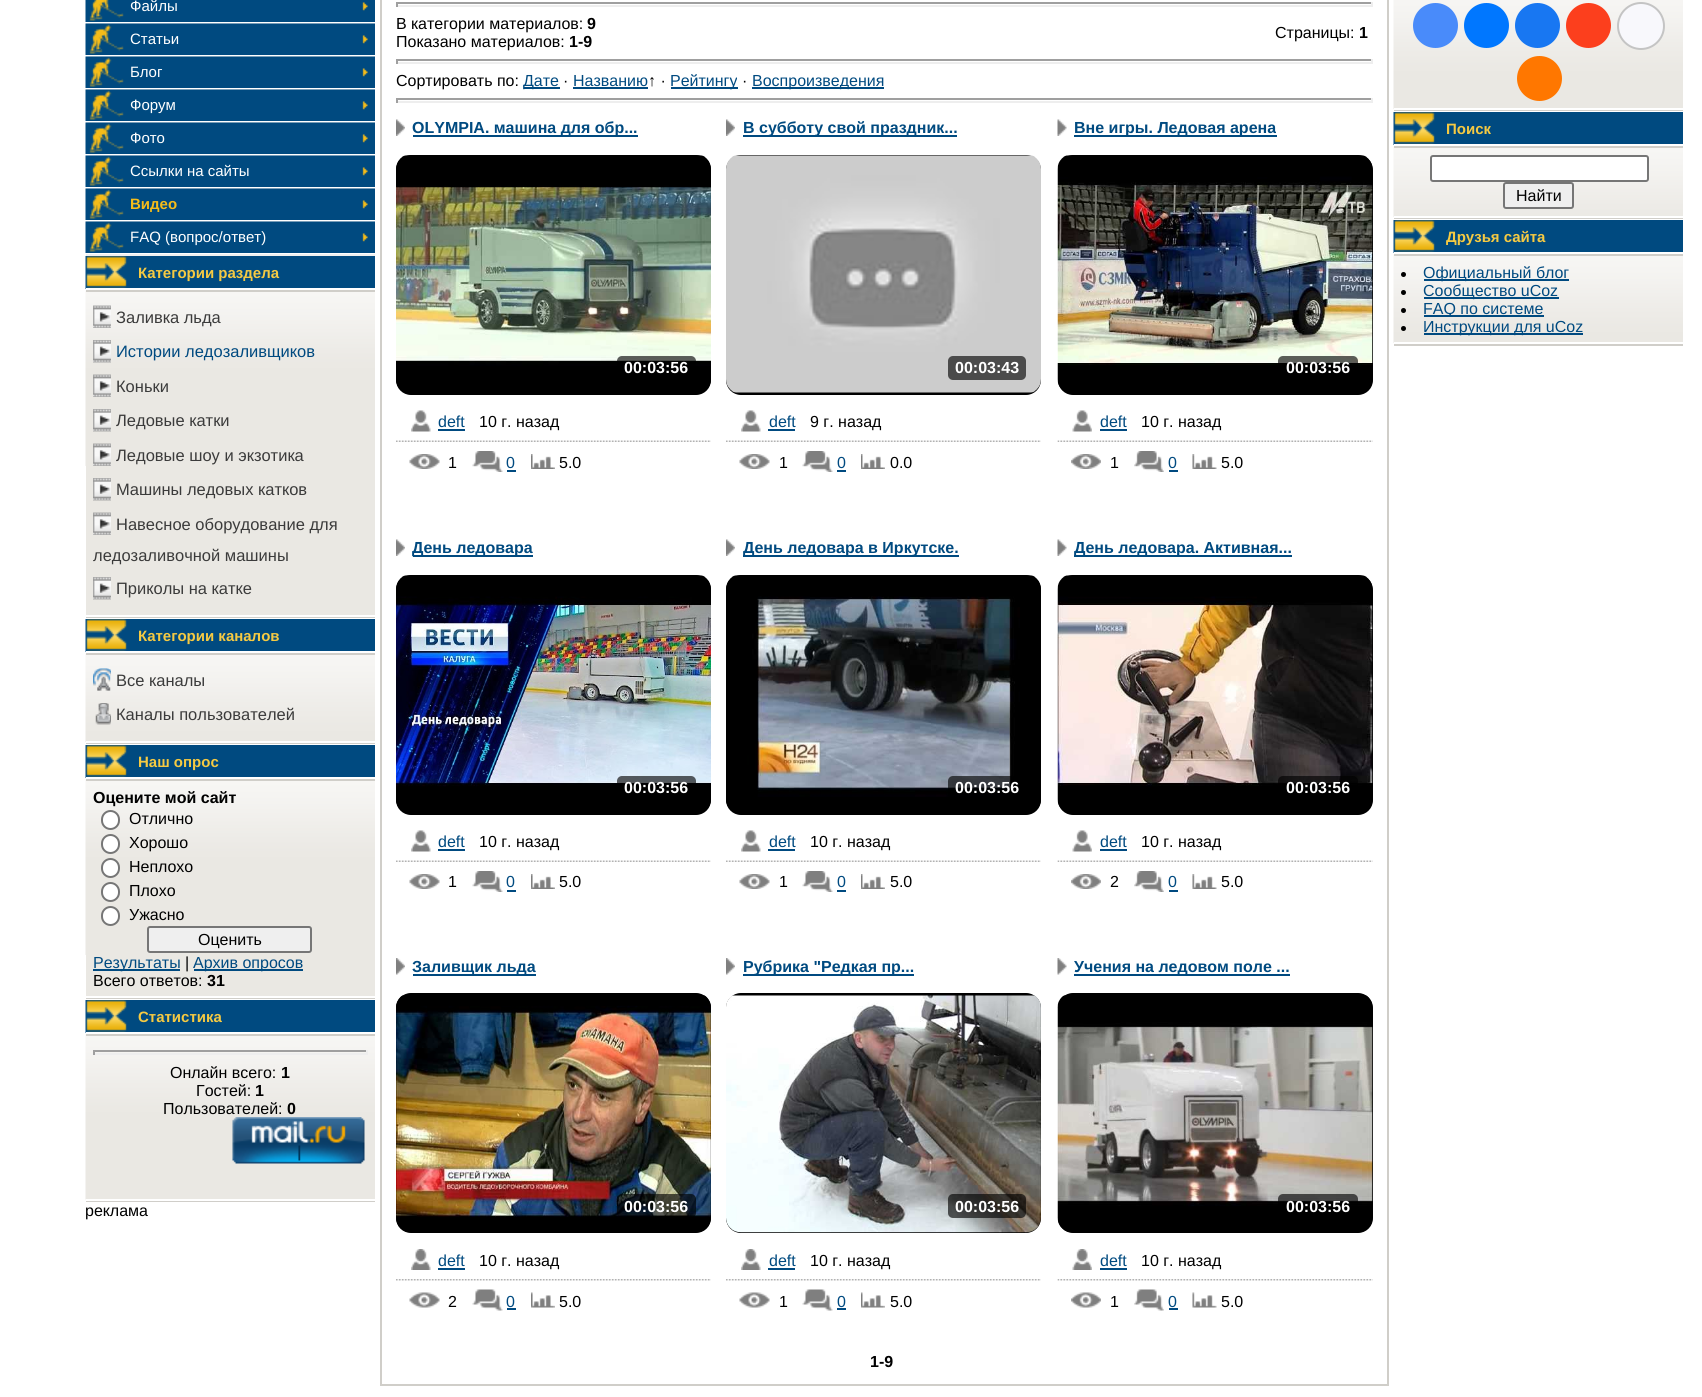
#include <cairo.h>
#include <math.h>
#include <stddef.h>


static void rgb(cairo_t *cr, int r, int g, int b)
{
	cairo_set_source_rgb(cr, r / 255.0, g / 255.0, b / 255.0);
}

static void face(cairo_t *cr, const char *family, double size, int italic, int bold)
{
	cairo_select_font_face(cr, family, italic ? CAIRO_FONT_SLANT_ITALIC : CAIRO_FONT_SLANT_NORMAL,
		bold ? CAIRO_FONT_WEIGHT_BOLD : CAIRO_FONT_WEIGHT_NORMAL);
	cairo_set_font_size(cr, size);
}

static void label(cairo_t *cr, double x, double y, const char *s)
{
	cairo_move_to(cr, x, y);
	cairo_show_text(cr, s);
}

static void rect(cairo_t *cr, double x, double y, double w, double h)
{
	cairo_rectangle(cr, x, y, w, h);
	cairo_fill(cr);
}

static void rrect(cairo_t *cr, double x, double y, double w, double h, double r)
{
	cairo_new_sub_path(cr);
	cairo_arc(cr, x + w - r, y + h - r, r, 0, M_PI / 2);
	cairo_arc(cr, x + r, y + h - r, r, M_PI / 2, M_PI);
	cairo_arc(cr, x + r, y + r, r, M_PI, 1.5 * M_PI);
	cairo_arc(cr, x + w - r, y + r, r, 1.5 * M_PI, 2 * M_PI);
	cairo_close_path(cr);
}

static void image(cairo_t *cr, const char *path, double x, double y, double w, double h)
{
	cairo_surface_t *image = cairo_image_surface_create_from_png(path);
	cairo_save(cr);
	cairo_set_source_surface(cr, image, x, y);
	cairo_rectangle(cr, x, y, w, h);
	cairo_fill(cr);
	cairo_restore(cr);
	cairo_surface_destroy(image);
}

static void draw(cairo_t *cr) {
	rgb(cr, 255, 255, 255);
	cairo_paint(cr);
	image(cr, "image0.png", 85, 0, 290, 22);
	rgb(cr, 240, 240, 240);
	rect(cr, 86, 23, 289, 1);
	face(cr, "Liberation Sans", 15, 0, 0);
	rgb(cr, 255, 255, 255);
	label(cr, 130, 11, "Файлы");
	image(cr, "image1.png", 85, 23, 290, 32);
	rgb(cr, 240, 240, 240);
	rect(cr, 86, 56, 289, 1);
	rgb(cr, 255, 255, 255);
	label(cr, 130, 44, "Статьи");
	image(cr, "image1.png", 85, 56, 290, 32);
	rgb(cr, 240, 240, 240);
	rect(cr, 86, 89, 289, 1);
	rgb(cr, 255, 255, 255);
	label(cr, 130, 77, "Блог");
	image(cr, "image1.png", 85, 89, 290, 32);
	rgb(cr, 240, 240, 240);
	rect(cr, 86, 122, 289, 1);
	rgb(cr, 255, 255, 255);
	label(cr, 130, 110, "Форум");
	image(cr, "image1.png", 85, 122, 290, 32);
	rgb(cr, 240, 240, 240);
	rect(cr, 86, 155, 289, 1);
	rgb(cr, 255, 255, 255);
	label(cr, 130, 143, "Фото");
	image(cr, "image1.png", 85, 155, 290, 32);
	rgb(cr, 240, 240, 240);
	rect(cr, 86, 188, 289, 1);
	rgb(cr, 255, 255, 255);
	label(cr, 130, 176, "Ссылки на сайты");
	image(cr, "image1.png", 85, 188, 290, 32);
	rgb(cr, 240, 240, 240);
	rect(cr, 86, 221, 289, 1);
	face(cr, "Liberation Sans", 15, 0, 1);
	rgb(cr, 245, 188, 25);
	label(cr, 130, 209, "Видео");
	image(cr, "image1.png", 85, 221, 290, 32);
	rgb(cr, 240, 240, 240);
	rect(cr, 86, 254, 289, 2);
	face(cr, "Liberation Sans", 15, 0, 0);
	rgb(cr, 255, 255, 255);
	label(cr, 130, 242, "FAQ (вопрос/ответ)");
	rgb(cr, 208, 206, 201);
	rect(cr, 86, 617, 289, 1);
	image(cr, "image2.png", 85, 256, 290, 33);
	rgb(cr, 255, 255, 255);
	rect(cr, 86, 288, 289, 1);
	face(cr, "Liberation Sans", 15, 0, 1);
	rgb(cr, 246, 202, 66);
	label(cr, 138, 278, "Категории раздела");
	rgb(cr, 234, 232, 227);
	rect(cr, 86, 466, 289, 149);
	image(cr, "image3.png", 85, 290, 290, 176);
	rgb(cr, 208, 206, 201);
	rect(cr, 86, 290, 289, 2);
	image(cr, "image4.png", 93, 305, 18, 23);
	face(cr, "Liberation Sans", 16.5, 0, 0);
	rgb(cr, 59, 59, 59);
	label(cr, 116, 323, "Заливка льда");
	image(cr, "image5.png", 93, 340, 18, 23);
	rgb(cr, 0, 74, 128);
	label(cr, 116, 357, "Истории ледозаливщиков");
	image(cr, "image6.png", 93, 374, 18, 23);
	rgb(cr, 59, 59, 59);
	label(cr, 116, 392, "Коньки");
	image(cr, "image7.png", 93, 409, 18, 23);
	label(cr, 116, 426, "Ледовые катки");
	image(cr, "image6.png", 93, 443, 18, 23);
	label(cr, 116, 461, "Ледовые шоу и экзотика");
	image(cr, "image7.png", 93, 478, 18, 23);
	label(cr, 116, 495, "Машины ледовых катков");
	image(cr, "image6.png", 93, 512, 18, 23);
	label(cr, 116, 530, "Навесное оборудование для");
	label(cr, 93, 561, "ледозаливочной машины");
	image(cr, "image7.png", 93, 577, 18, 23);
	label(cr, 116, 594, "Приколы на катке");
	rgb(cr, 208, 206, 201);
	rect(cr, 86, 743, 289, 1);
	image(cr, "image8.png", 85, 619, 290, 33);
	rgb(cr, 255, 255, 255);
	rect(cr, 86, 651, 289, 1);
	face(cr, "Liberation Sans", 15, 0, 1);
	rgb(cr, 246, 202, 66);
	label(cr, 138, 641, "Категории каналов");
	image(cr, "image9.png", 85, 653, 290, 89);
	rgb(cr, 208, 206, 201);
	rect(cr, 86, 653, 289, 2);
	rgb(cr, 255, 255, 255);
	rect(cr, 86, 741, 289, 1);
	image(cr, "image10.png", 93, 668, 18, 23);
	face(cr, "Liberation Sans", 16.5, 0, 0);
	rgb(cr, 59, 59, 59);
	label(cr, 116, 686, "Все каналы");
	image(cr, "image11.png", 95, 703, 16, 22);
	label(cr, 116, 720, "Каналы пользователей");
	rgb(cr, 208, 206, 201);
	rect(cr, 86, 998, 289, 1);
	image(cr, "image12.png", 85, 745, 290, 33);
	rgb(cr, 255, 255, 255);
	rect(cr, 86, 777, 289, 1);
	face(cr, "Liberation Sans", 15, 0, 1);
	rgb(cr, 246, 202, 66);
	label(cr, 138, 767, "Наш опрос");
	rgb(cr, 234, 232, 227);
	rect(cr, 86, 955, 289, 41);
	image(cr, "image3.png", 85, 779, 290, 176);
	rgb(cr, 208, 206, 201);
	rect(cr, 86, 779, 289, 2);
	face(cr, "Liberation Sans", 16, 0, 1);
	rgb(cr, 0, 0, 0);
	label(cr, 93, 803, "Оцените мой сайт");
	rgb(cr, 255, 255, 255);
	rrect(cr, 102, 811, 17, 18, 8.5);
	cairo_fill_preserve(cr);
	rgb(cr, 118, 118, 118);
	cairo_stroke(cr);
	face(cr, "Liberation Sans", 16, 0, 0);
	rgb(cr, 0, 0, 0);
	label(cr, 129, 824, "Отлично");
	rgb(cr, 255, 255, 255);
	rrect(cr, 102, 835, 17, 18, 8.5);
	cairo_fill_preserve(cr);
	rgb(cr, 118, 118, 118);
	cairo_stroke(cr);
	rgb(cr, 0, 0, 0);
	label(cr, 129, 848, "Хорошо");
	rgb(cr, 255, 255, 255);
	rrect(cr, 102, 859, 17, 18, 8.5);
	cairo_fill_preserve(cr);
	rgb(cr, 118, 118, 118);
	cairo_stroke(cr);
	rgb(cr, 0, 0, 0);
	label(cr, 129, 872, "Неплохо");
	rgb(cr, 255, 255, 255);
	rrect(cr, 102, 883, 17, 18, 8.5);
	cairo_fill_preserve(cr);
	rgb(cr, 118, 118, 118);
	cairo_stroke(cr);
	rgb(cr, 0, 0, 0);
	label(cr, 129, 896, "Плохо");
	rgb(cr, 255, 255, 255);
	rrect(cr, 102, 907, 17, 18, 8.5);
	cairo_fill_preserve(cr);
	rgb(cr, 118, 118, 118);
	cairo_stroke(cr);
	rgb(cr, 0, 0, 0);
	label(cr, 129, 920, "Ужасно");
	rgb(cr, 239, 239, 239);
	rrect(cr, 148, 927, 163, 25, 2);
	cairo_fill_preserve(cr);
	rgb(cr, 118, 118, 118);
	cairo_stroke(cr);
	rgb(cr, 0, 0, 0);
	label(cr, 198, 945, "Оценить");
	rgb(cr, 0, 74, 128);
	rect(cr, 93, 969, 87, 2);
	label(cr, 93, 968, "Результаты");
	rgb(cr, 0, 0, 0);
	label(cr, 185, 968, "|");
	rgb(cr, 0, 74, 128);
	rect(cr, 194, 969, 109, 2);
	label(cr, 193, 968, "Архив опросов");
	rgb(cr, 0, 0, 0);
	label(cr, 93, 986, "Всего ответов:");
	face(cr, "Liberation Sans", 16, 0, 1);
	label(cr, 207, 986, "31");
	rgb(cr, 208, 206, 201);
	rect(cr, 86, 1201, 289, 1);
	image(cr, "image13.png", 85, 1000, 290, 33);
	rgb(cr, 255, 255, 255);
	rect(cr, 86, 1032, 289, 1);
	face(cr, "Liberation Sans", 15, 0, 1);
	rgb(cr, 246, 202, 66);
	label(cr, 138, 1022, "Статистика");
	image(cr, "image14.png", 85, 1034, 290, 166);
	rgb(cr, 208, 206, 201);
	rect(cr, 86, 1034, 289, 2);
	rgb(cr, 255, 255, 255);
	rect(cr, 86, 1199, 289, 1);
	rgb(cr, 159, 159, 159);
	rect(cr, 93, 1050, 275, 2);
	rgb(cr, 238, 238, 238);
	rect(cr, 366, 1050, 2, 5);
	rect(cr, 93, 1053, 275, 2);
	rgb(cr, 159, 159, 159);
	rect(cr, 93, 1050, 2, 5);
	face(cr, "Liberation Sans", 16, 0, 0);
	rgb(cr, 0, 0, 0);
	label(cr, 170, 1078, "Онлайн всего:");
	face(cr, "Liberation Sans", 16, 0, 1);
	label(cr, 281, 1078, "1");
	face(cr, "Liberation Sans", 16, 0, 0);
	label(cr, 196, 1096, "Гостей:");
	face(cr, "Liberation Sans", 16, 0, 1);
	label(cr, 255, 1096, "1");
	face(cr, "Liberation Sans", 16, 0, 0);
	label(cr, 163, 1114, "Пользователей:");
	face(cr, "Liberation Sans", 16, 0, 1);
	label(cr, 287, 1114, "0");
	image(cr, "image15.png", 232, 1117, 133, 47);
	face(cr, "Liberation Sans", 16, 0, 0);
	label(cr, 85, 1216, "реклама");
	cairo_rectangle(cr, 381, -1, 1007, 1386);
	rgb(cr, 208, 206, 201);
	cairo_stroke(cr);
	rgb(cr, 159, 159, 159);
	rect(cr, 396, 2, 977, 2);
	rgb(cr, 238, 238, 238);
	rect(cr, 1371, 2, 2, 5);
	rect(cr, 396, 5, 977, 2);
	rgb(cr, 159, 159, 159);
	rect(cr, 396, 2, 2, 5);
	rgb(cr, 0, 0, 0);
	label(cr, 396, 29, "В категории материалов:");
	face(cr, "Liberation Sans", 16, 0, 1);
	label(cr, 587, 29, "9");
	face(cr, "Liberation Sans", 16, 0, 0);
	label(cr, 396, 47, "Показано материалов:");
	face(cr, "Liberation Sans", 16, 0, 1);
	label(cr, 569, 47, "1-9");
	face(cr, "Liberation Sans", 16, 0, 0);
	label(cr, 1275, 38, "Страницы:");
	face(cr, "Liberation Sans", 16, 0, 1);
	label(cr, 1359, 38, "1");
	rgb(cr, 159, 159, 159);
	rect(cr, 396, 59, 977, 2);
	rgb(cr, 238, 238, 238);
	rect(cr, 1371, 59, 2, 5);
	rect(cr, 396, 62, 977, 2);
	rgb(cr, 159, 159, 159);
	rect(cr, 396, 59, 2, 5);
	face(cr, "Liberation Sans", 16, 0, 0);
	rgb(cr, 0, 0, 0);
	label(cr, 396, 86, "Сортировать по:");
	rgb(cr, 0, 74, 128);
	rect(cr, 524, 87, 36, 2);
	label(cr, 523, 86, "Дате");
	rgb(cr, 0, 0, 0);
	label(cr, 563, 86, "·");
	rgb(cr, 0, 74, 128);
	label(cr, 573, 86, "Названию");
	rect(cr, 573, 87, 75, 2);
	rgb(cr, 0, 0, 0);
	label(cr, 648, 86, "↑ ·");
	rgb(cr, 0, 74, 128);
	rect(cr, 671, 87, 67, 2);
	label(cr, 670, 86, "Рейтингу");
	rgb(cr, 0, 0, 0);
	label(cr, 742, 86, "·");
	rgb(cr, 0, 74, 128);
	rect(cr, 752, 87, 132, 2);
	label(cr, 752, 86, "Воспроизведения");
	rgb(cr, 159, 159, 159);
	rect(cr, 396, 98, 977, 2);
	rgb(cr, 238, 238, 238);
	rect(cr, 1371, 98, 2, 5);
	rect(cr, 396, 101, 977, 2);
	rgb(cr, 159, 159, 159);
	rect(cr, 396, 98, 2, 5);
	image(cr, "image16.png", 396, 119, 9, 17);
	rgb(cr, 0, 74, 128);
	rect(cr, 413, 135, 225, 2);
	face(cr, "Liberation Sans", 16, 0, 1);
	label(cr, 412, 133, "OLYMPIA. машина для обр...");
	rgb(cr, 0, 0, 0);
	rrect(cr, 396, 155, 315, 240, 15);
	cairo_fill(cr);
	image(cr, "image17.png", 396, 155, 315, 233);
	cairo_set_source_rgba(cr, 0, 0, 0, 0.63);
	rrect(cr, 617, 356, 79, 24, 5);
	cairo_fill(cr);
	rgb(cr, 255, 255, 255);
	label(cr, 624, 373, "00:03:56");
	image(cr, "image18.png", 396, 440, 315, 2);
	image(cr, "image19.png", 411, 410, 20, 22);
	face(cr, "Liberation Sans", 16, 0, 0);
	rgb(cr, 0, 74, 128);
	label(cr, 438, 427, "deft");
	rect(cr, 438, 429, 27, 2);
	rgb(cr, 0, 0, 0);
	label(cr, 479, 427, "10 г. назад");
	image(cr, "image20.png", 409, 454, 31, 15);
	label(cr, 448, 468, "1");
	image(cr, "image21.png", 472, 451, 31, 21);
	rgb(cr, 0, 74, 128);
	label(cr, 506, 468, "0");
	rect(cr, 507, 470, 9, 2);
	image(cr, "image22.png", 531, 454, 24, 15);
	rgb(cr, 0, 0, 0);
	label(cr, 559, 468, "5.0");
	image(cr, "image16.png", 726, 119, 9, 17);
	rgb(cr, 0, 74, 128);
	rect(cr, 743, 135, 214, 2);
	face(cr, "Liberation Sans", 16, 0, 1);
	label(cr, 743, 133, "В субботу свой праздник...");
	rgb(cr, 0, 0, 0);
	rrect(cr, 726, 155, 315, 240, 15);
	cairo_fill(cr);
	image(cr, "image23.png", 726, 155, 315, 238);
	rgb(cr, 75, 75, 75);
	rrect(cr, 948, 356, 78, 24, 5);
	cairo_fill(cr);
	rgb(cr, 255, 255, 255);
	label(cr, 955, 373, "00:03:43");
	image(cr, "image18.png", 726, 440, 315, 2);
	image(cr, "image19.png", 741, 410, 20, 22);
	face(cr, "Liberation Sans", 16, 0, 0);
	rgb(cr, 0, 74, 128);
	label(cr, 769, 427, "deft");
	rect(cr, 768, 429, 27, 2);
	rgb(cr, 0, 0, 0);
	label(cr, 810, 427, "9 г. назад");
	image(cr, "image20.png", 739, 454, 31, 15);
	label(cr, 779, 468, "1");
	image(cr, "image21.png", 802, 451, 31, 21);
	rgb(cr, 0, 74, 128);
	label(cr, 837, 468, "0");
	rect(cr, 837, 470, 9, 2);
	image(cr, "image24.png", 861, 454, 24, 15);
	rgb(cr, 0, 0, 0);
	label(cr, 890, 468, "0.0");
	image(cr, "image25.png", 1057, 119, 10, 17);
	rgb(cr, 0, 74, 128);
	rect(cr, 1074, 135, 203, 2);
	face(cr, "Liberation Sans", 16, 0, 1);
	label(cr, 1074, 133, "Вне игры. Ледовая арена");
	rgb(cr, 0, 0, 0);
	rrect(cr, 1058, 155, 315, 240, 15);
	cairo_fill(cr);
	image(cr, "image26.png", 1057, 155, 316, 237);
	cairo_set_source_rgba(cr, 0, 0, 0, 0.63);
	rrect(cr, 1278, 356, 80, 24, 5);
	cairo_fill(cr);
	rgb(cr, 255, 255, 255);
	label(cr, 1286, 373, "00:03:56");
	image(cr, "image27.png", 1057, 440, 316, 2);
	image(cr, "image28.png", 1072, 410, 20, 22);
	face(cr, "Liberation Sans", 16, 0, 0);
	rgb(cr, 0, 74, 128);
	label(cr, 1100, 427, "deft");
	rect(cr, 1100, 429, 27, 2);
	rgb(cr, 0, 0, 0);
	label(cr, 1141, 427, "10 г. назад");
	image(cr, "image29.png", 1071, 454, 30, 15);
	label(cr, 1110, 468, "1");
	image(cr, "image30.png", 1134, 451, 30, 21);
	rgb(cr, 0, 74, 128);
	label(cr, 1168, 468, "0");
	rect(cr, 1169, 470, 9, 2);
	image(cr, "image31.png", 1192, 454, 25, 15);
	rgb(cr, 0, 0, 0);
	label(cr, 1221, 468, "5.0");
	image(cr, "image16.png", 396, 539, 9, 17);
	rgb(cr, 0, 74, 128);
	rect(cr, 413, 555, 120, 2);
	face(cr, "Liberation Sans", 16, 0, 1);
	label(cr, 412, 553, "День ледовара");
	rgb(cr, 0, 0, 0);
	rrect(cr, 396, 575, 315, 240, 15);
	cairo_fill(cr);
	image(cr, "image32.png", 396, 575, 315, 233);
	cairo_set_source_rgba(cr, 0, 0, 0, 0.63);
	rrect(cr, 617, 776, 79, 24, 5);
	cairo_fill(cr);
	rgb(cr, 255, 255, 255);
	label(cr, 624, 793, "00:03:56");
	image(cr, "image18.png", 396, 860, 315, 2);
	image(cr, "image19.png", 411, 830, 20, 22);
	face(cr, "Liberation Sans", 16, 0, 0);
	rgb(cr, 0, 74, 128);
	label(cr, 438, 847, "deft");
	rect(cr, 438, 849, 27, 2);
	rgb(cr, 0, 0, 0);
	label(cr, 479, 847, "10 г. назад");
	image(cr, "image20.png", 409, 874, 31, 15);
	label(cr, 448, 887, "1");
	image(cr, "image21.png", 472, 871, 31, 21);
	rgb(cr, 0, 74, 128);
	label(cr, 506, 887, "0");
	rect(cr, 507, 890, 9, 2);
	image(cr, "image22.png", 531, 874, 24, 15);
	rgb(cr, 0, 0, 0);
	label(cr, 559, 887, "5.0");
	image(cr, "image16.png", 726, 539, 9, 17);
	rgb(cr, 0, 74, 128);
	rect(cr, 743, 555, 216, 2);
	face(cr, "Liberation Sans", 16, 0, 1);
	label(cr, 743, 553, "День ледовара в Иркутске.");
	rgb(cr, 0, 0, 0);
	rrect(cr, 726, 575, 315, 240, 15);
	cairo_fill(cr);
	image(cr, "image33.png", 726, 575, 315, 233);
	cairo_set_source_rgba(cr, 0, 0, 0, 0.63);
	rrect(cr, 948, 776, 78, 24, 5);
	cairo_fill(cr);
	rgb(cr, 255, 255, 255);
	label(cr, 955, 793, "00:03:56");
	image(cr, "image18.png", 726, 860, 315, 2);
	image(cr, "image19.png", 741, 830, 20, 22);
	face(cr, "Liberation Sans", 16, 0, 0);
	rgb(cr, 0, 74, 128);
	label(cr, 769, 847, "deft");
	rect(cr, 768, 849, 27, 2);
	rgb(cr, 0, 0, 0);
	label(cr, 810, 847, "10 г. назад");
	image(cr, "image20.png", 739, 874, 31, 15);
	label(cr, 779, 887, "1");
	image(cr, "image21.png", 802, 871, 31, 21);
	rgb(cr, 0, 74, 128);
	label(cr, 837, 887, "0");
	rect(cr, 837, 890, 9, 2);
	image(cr, "image24.png", 861, 874, 24, 15);
	rgb(cr, 0, 0, 0);
	label(cr, 890, 887, "5.0");
	image(cr, "image25.png", 1057, 539, 10, 17);
	rgb(cr, 0, 74, 128);
	rect(cr, 1074, 555, 218, 2);
	face(cr, "Liberation Sans", 16, 0, 1);
	label(cr, 1074, 553, "День ледовара. Активная...");
	rgb(cr, 0, 0, 0);
	rrect(cr, 1058, 575, 315, 240, 15);
	cairo_fill(cr);
	image(cr, "image34.png", 1057, 575, 316, 237);
	cairo_set_source_rgba(cr, 0, 0, 0, 0.63);
	rrect(cr, 1278, 776, 80, 24, 5);
	cairo_fill(cr);
	rgb(cr, 255, 255, 255);
	label(cr, 1286, 793, "00:03:56");
	image(cr, "image27.png", 1057, 860, 316, 2);
	image(cr, "image28.png", 1072, 830, 20, 22);
	face(cr, "Liberation Sans", 16, 0, 0);
	rgb(cr, 0, 74, 128);
	label(cr, 1100, 847, "deft");
	rect(cr, 1100, 849, 27, 2);
	rgb(cr, 0, 0, 0);
	label(cr, 1141, 847, "10 г. назад");
	image(cr, "image29.png", 1071, 874, 30, 15);
	label(cr, 1110, 887, "2");
	image(cr, "image30.png", 1134, 871, 30, 21);
	rgb(cr, 0, 74, 128);
	label(cr, 1168, 887, "0");
	rect(cr, 1169, 890, 9, 2);
	image(cr, "image31.png", 1192, 874, 25, 15);
	rgb(cr, 0, 0, 0);
	label(cr, 1221, 887, "5.0");
	image(cr, "image35.png", 396, 958, 9, 17);
	rgb(cr, 0, 74, 128);
	rect(cr, 413, 974, 123, 2);
	face(cr, "Liberation Sans", 16, 0, 1);
	label(cr, 412, 972, "Заливщик льда");
	rgb(cr, 0, 0, 0);
	rrect(cr, 396, 993, 315, 240, 15);
	cairo_fill(cr);
	image(cr, "image36.png", 396, 995, 315, 237);
	cairo_set_source_rgba(cr, 0, 0, 0, 0.63);
	rrect(cr, 617, 1194, 79, 24, 5);
	cairo_fill(cr);
	rgb(cr, 255, 255, 255);
	label(cr, 624, 1212, "00:03:56");
	image(cr, "image37.png", 396, 1279, 315, 2);
	image(cr, "image38.png", 411, 1249, 20, 21);
	face(cr, "Liberation Sans", 16, 0, 0);
	rgb(cr, 0, 74, 128);
	label(cr, 438, 1266, "deft");
	rect(cr, 438, 1268, 27, 2);
	rgb(cr, 0, 0, 0);
	label(cr, 479, 1266, "10 г. назад");
	image(cr, "image39.png", 409, 1292, 31, 16);
	label(cr, 448, 1307, "2");
	image(cr, "image40.png", 472, 1289, 31, 22);
	rgb(cr, 0, 74, 128);
	label(cr, 506, 1307, "0");
	rect(cr, 507, 1308, 9, 2);
	image(cr, "image41.png", 531, 1292, 24, 16);
	rgb(cr, 0, 0, 0);
	label(cr, 559, 1307, "5.0");
	image(cr, "image35.png", 726, 958, 9, 17);
	rgb(cr, 0, 74, 128);
	rect(cr, 743, 974, 171, 2);
	face(cr, "Liberation Sans", 16, 0, 1);
	label(cr, 743, 972, "Рубрика \"Редкая пр...");
	rgb(cr, 0, 0, 0);
	rrect(cr, 726, 993, 315, 240, 15);
	cairo_fill(cr);
	image(cr, "image42.png", 726, 995, 315, 238);
	cairo_set_source_rgba(cr, 0, 0, 0, 0.63);
	rrect(cr, 948, 1194, 78, 24, 5);
	cairo_fill(cr);
	rgb(cr, 255, 255, 255);
	label(cr, 955, 1212, "00:03:56");
	image(cr, "image37.png", 726, 1279, 315, 2);
	image(cr, "image38.png", 741, 1249, 20, 21);
	face(cr, "Liberation Sans", 16, 0, 0);
	rgb(cr, 0, 74, 128);
	label(cr, 769, 1266, "deft");
	rect(cr, 768, 1268, 27, 2);
	rgb(cr, 0, 0, 0);
	label(cr, 810, 1266, "10 г. назад");
	image(cr, "image39.png", 739, 1292, 31, 16);
	label(cr, 779, 1307, "1");
	image(cr, "image40.png", 802, 1289, 31, 22);
	rgb(cr, 0, 74, 128);
	label(cr, 837, 1307, "0");
	rect(cr, 837, 1308, 9, 2);
	image(cr, "image43.png", 861, 1292, 24, 16);
	rgb(cr, 0, 0, 0);
	label(cr, 890, 1307, "5.0");
	image(cr, "image44.png", 1057, 958, 10, 17);
	rgb(cr, 0, 74, 128);
	rect(cr, 1074, 974, 216, 2);
	face(cr, "Liberation Sans", 16, 0, 1);
	label(cr, 1074, 972, "Учения на ледовом поле ...");
	rgb(cr, 0, 0, 0);
	rrect(cr, 1058, 993, 315, 240, 15);
	cairo_fill(cr);
	image(cr, "image45.png", 1057, 995, 316, 238);
	cairo_set_source_rgba(cr, 0, 0, 0, 0.63);
	rrect(cr, 1278, 1194, 80, 24, 5);
	cairo_fill(cr);
	rgb(cr, 255, 255, 255);
	label(cr, 1286, 1212, "00:03:56");
	image(cr, "image46.png", 1057, 1279, 316, 2);
	image(cr, "image47.png", 1072, 1249, 20, 21);
	face(cr, "Liberation Sans", 16, 0, 0);
	rgb(cr, 0, 74, 128);
	label(cr, 1100, 1266, "deft");
	rect(cr, 1100, 1268, 27, 2);
	rgb(cr, 0, 0, 0);
	label(cr, 1141, 1266, "10 г. назад");
	image(cr, "image48.png", 1071, 1292, 30, 16);
	label(cr, 1110, 1307, "1");
	image(cr, "image49.png", 1134, 1289, 30, 22);
	rgb(cr, 0, 74, 128);
	label(cr, 1168, 1307, "0");
	rect(cr, 1169, 1308, 9, 2);
	image(cr, "image50.png", 1192, 1292, 25, 16);
	rgb(cr, 0, 0, 0);
	label(cr, 1221, 1307, "5.0");
	face(cr, "Liberation Sans", 16, 0, 1);
	label(cr, 870, 1367, "1-9");
	rgb(cr, 208, 206, 201);
	rect(cr, 1394, 110, 289, 1);
	image(cr, "image51.png", 1393, 0, 290, 109);
	rgb(cr, 255, 255, 255);
	rect(cr, 1394, 108, 289, 1);
	rgb(cr, 73, 139, 250);
	cairo_arc(cr, 1435.5, 25.5, 22.5, 0, 2 * M_PI);
	cairo_fill(cr);
	rgb(cr, 0, 119, 255);
	cairo_arc(cr, 1486.5, 25.5, 22.5, 0, 2 * M_PI);
	cairo_fill(cr);
	rgb(cr, 24, 119, 242);
	cairo_arc(cr, 1537.5, 25.5, 22.5, 0, 2 * M_PI);
	cairo_fill(cr);
	rgb(cr, 252, 63, 29);
	cairo_arc(cr, 1588.5, 25.5, 22.5, 0, 2 * M_PI);
	cairo_fill(cr);
	rgb(cr, 248, 248, 252);
	cairo_arc(cr, 1641, 26, 23, 0, 2 * M_PI);
	cairo_fill_preserve(cr);
	rgb(cr, 196, 196, 196);
	cairo_stroke(cr);
	rgb(cr, 255, 119, 0);
	cairo_arc(cr, 1539.5, 78.5, 22.5, 0, 2 * M_PI);
	cairo_fill(cr);
	rgb(cr, 208, 206, 201);
	rect(cr, 1394, 218, 289, 1);
	image(cr, "image52.png", 1393, 112, 290, 33);
	rgb(cr, 255, 255, 255);
	rect(cr, 1394, 144, 289, 1);
	face(cr, "Liberation Sans", 15, 0, 1);
	rgb(cr, 246, 202, 66);
	label(cr, 1446, 134, "Поиск");
	image(cr, "image53.png", 1393, 146, 290, 71);
	rgb(cr, 208, 206, 201);
	rect(cr, 1394, 146, 289, 2);
	rgb(cr, 255, 255, 255);
	rect(cr, 1394, 216, 289, 1);
	rrect(cr, 1431, 156, 217, 25, 2);
	cairo_fill_preserve(cr);
	rgb(cr, 118, 118, 118);
	cairo_stroke(cr);
	rgb(cr, 239, 239, 239);
	rrect(cr, 1504, 183, 69, 25, 2);
	cairo_fill_preserve(cr);
	rgb(cr, 118, 118, 118);
	cairo_stroke(cr);
	face(cr, "Liberation Sans", 16, 0, 0);
	rgb(cr, 0, 0, 0);
	label(cr, 1516, 201, "Найти");
	rgb(cr, 208, 206, 201);
	rect(cr, 1394, 344, 289, 2);
	image(cr, "image54.png", 1393, 220, 290, 33);
	rgb(cr, 255, 255, 255);
	rect(cr, 1394, 252, 289, 1);
	face(cr, "Liberation Sans", 15, 0, 1);
	rgb(cr, 246, 202, 66);
	label(cr, 1446, 242, "Друзья сайта");
	image(cr, "image9.png", 1393, 254, 290, 89);
	rgb(cr, 208, 206, 201);
	rect(cr, 1394, 254, 289, 2);
	rgb(cr, 255, 255, 255);
	rect(cr, 1394, 342, 289, 1);
	rgb(cr, 0, 0, 0);
	cairo_arc(cr, 1403.5, 274.5, 2.5, 0, 2 * M_PI);
	cairo_fill(cr);
	rgb(cr, 0, 74, 128);
	rect(cr, 1424, 279, 145, 2);
	face(cr, "Liberation Sans", 16, 0, 0);
	label(cr, 1423, 278, "Официальный блог");
	rgb(cr, 0, 0, 0);
	cairo_new_path(cr);
	cairo_arc(cr, 1403.5, 292.5, 2.5, 0, 2 * M_PI);
	cairo_fill(cr);
	rgb(cr, 0, 74, 128);
	rect(cr, 1424, 297, 135, 2);
	label(cr, 1423, 296, "Сообщество uCoz");
	rgb(cr, 0, 0, 0);
	cairo_new_path(cr);
	cairo_arc(cr, 1403.5, 310.5, 2.5, 0, 2 * M_PI);
	cairo_fill(cr);
	rgb(cr, 0, 74, 128);
	rect(cr, 1424, 315, 120, 2);
	label(cr, 1423, 314, "FAQ по системе");
	rgb(cr, 0, 0, 0);
	cairo_new_path(cr);
	cairo_arc(cr, 1403.5, 328.5, 2.5, 0, 2 * M_PI);
	cairo_fill(cr);
	rgb(cr, 0, 74, 128);
	rect(cr, 1424, 333, 159, 2);
	label(cr, 1423, 332, "Инструкции для uCoz");
}

int main(void) {
	cairo_surface_t *surface = cairo_image_surface_create(CAIRO_FORMAT_RGB24, 1702, 1397);
	cairo_t *cr = cairo_create(surface);
	cairo_font_options_t *options = cairo_font_options_create();
	cairo_font_options_set_hint_metrics(options, CAIRO_HINT_METRICS_OFF);
	cairo_font_options_set_hint_style(options, CAIRO_HINT_STYLE_NONE);
	cairo_set_font_options(cr, options);
	cairo_set_miter_limit(cr, 4);
	draw(cr);
	cairo_surface_write_to_png(surface, "render.png");
	cairo_font_options_destroy(options);
	cairo_destroy(cr);
	cairo_surface_destroy(surface);
	return 0;
}
